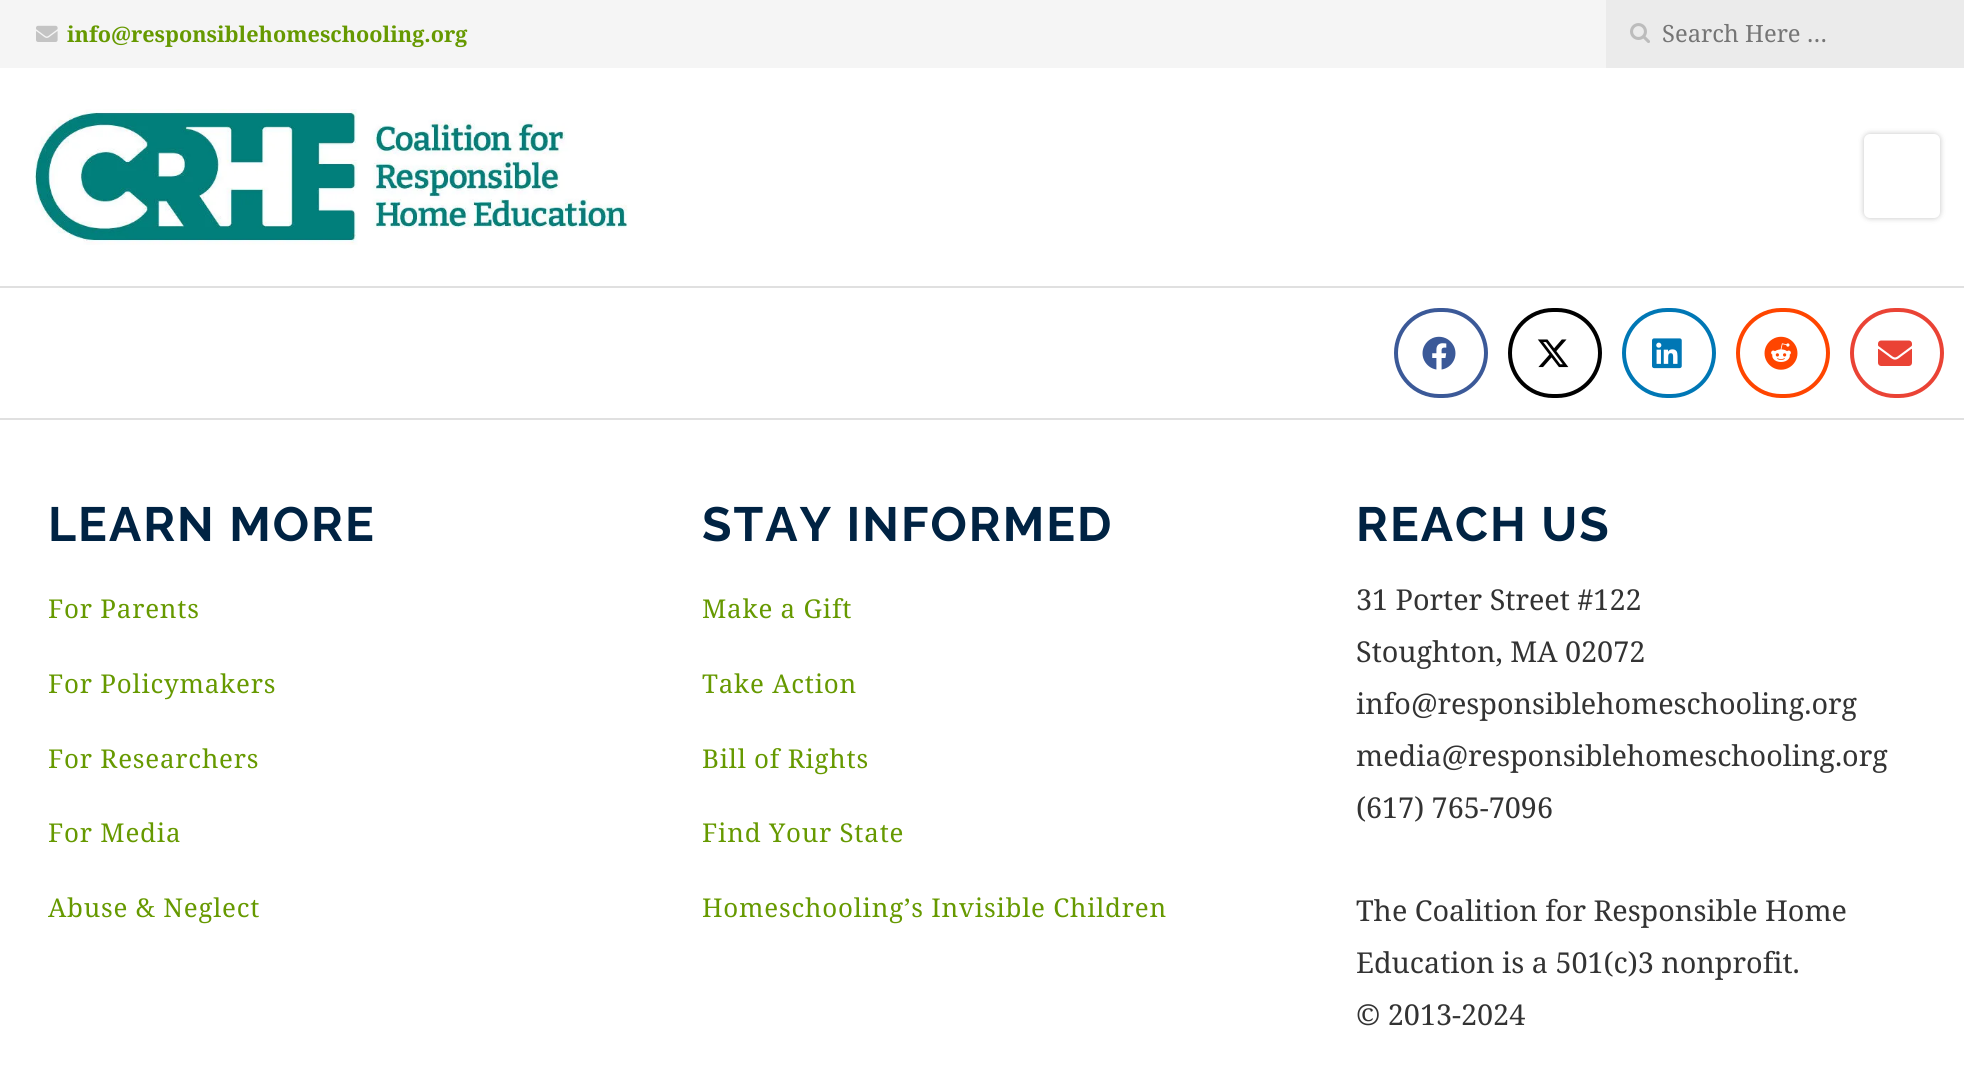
#include <cairo.h>
#include <math.h>
#include <stddef.h>


static void rgb(cairo_t *cr, int r, int g, int b)
{
	cairo_set_source_rgb(cr, r / 255.0, g / 255.0, b / 255.0);
}

static void face(cairo_t *cr, const char *family, double size, int italic, int bold)
{
	cairo_select_font_face(cr, family, italic ? CAIRO_FONT_SLANT_ITALIC : CAIRO_FONT_SLANT_NORMAL,
		bold ? CAIRO_FONT_WEIGHT_BOLD : CAIRO_FONT_WEIGHT_NORMAL);
	cairo_set_font_size(cr, size);
}

static void label(cairo_t *cr, double x, double y, const char *s)
{
	cairo_move_to(cr, x, y);
	cairo_show_text(cr, s);
}

static void tracked(cairo_t *cr, double x, double y, const char *s, double letter, double word)
{
	cairo_move_to(cr, x, y);
	while (*s) {
		char ch[5] = {0};
		int n = 0;
		do ch[n++] = *s++; while ((*s & 0xC0) == 0x80);
		cairo_show_text(cr, ch);
		cairo_rel_move_to(cr, letter + word * (*ch == ' '), 0);
	}
}

static void rect(cairo_t *cr, double x, double y, double w, double h)
{
	cairo_rectangle(cr, x, y, w, h);
	cairo_fill(cr);
}

static void rrect(cairo_t *cr, double x, double y, double w, double h, double r)
{
	cairo_new_sub_path(cr);
	cairo_arc(cr, x + w - r, y + h - r, r, 0, M_PI / 2);
	cairo_arc(cr, x + r, y + h - r, r, M_PI / 2, M_PI);
	cairo_arc(cr, x + r, y + r, r, M_PI, 1.5 * M_PI);
	cairo_arc(cr, x + w - r, y + r, r, 1.5 * M_PI, 2 * M_PI);
	cairo_close_path(cr);
}

static void soft_shadow(cairo_t *cr, double x, double y, double w, double h, double r, double blur, double alpha)
{
	cairo_push_group_with_content(cr, CAIRO_CONTENT_ALPHA);
	cairo_set_operator(cr, CAIRO_OPERATOR_SOURCE);
	for (int i = 15; i >= -15 && fmin(w, h) + blur * i / 3 > 0; i -= 2) {
		double e = blur * i / 6;
		cairo_set_source_rgba(cr, 0, 0, 0, alpha * erfc((i - 1) / 8.5) / 2);
		rrect(cr, x - e, y - e, w + 2 * e, h + 2 * e, fmax(0, fmin(r + e + blur * .6, fmin(w, h) / 2 + e)));
		cairo_fill(cr);
	}
	cairo_pattern_t *soft = cairo_pop_group(cr);
	cairo_mask(cr, soft);
	cairo_pattern_destroy(soft);
}

static void image(cairo_t *cr, const char *path, double x, double y, double w, double h)
{
	cairo_surface_t *image = cairo_image_surface_create_from_png(path);
	cairo_save(cr);
	cairo_set_source_surface(cr, image, x, y);
	cairo_rectangle(cr, x, y, w, h);
	cairo_fill(cr);
	cairo_restore(cr);
	cairo_surface_destroy(image);
}

static void draw(cairo_t *cr) {
	rgb(cr, 255, 255, 255);
	cairo_paint(cr);
	rgb(cr, 224, 224, 224);
	rect(cr, 0, 286, 1964, 2);
	rgb(cr, 245, 245, 245);
	rect(cr, 0, 0, 1606, 68);
	image(cr, "image0.png", 36, 25, 22, 17);
	face(cr, "Noto Serif", 21.6, 0, 1);
	rgb(cr, 102, 153, 0);
	label(cr, 67, 42, "info@responsiblehomeschooling.org");
	rgb(cr, 235, 235, 235);
	rect(cr, 1606, 0, 358, 68);
	image(cr, "image1.png", 1630, 23, 20, 20);
	face(cr, "Noto Serif", 23.75, 0, 0);
	rgb(cr, 117, 117, 117);
	label(cr, 1662, 42, "Search Here …");
	image(cr, "image2.png", 34, 109, 594, 136);
	rgb(cr, 0, 0, 0);
	soft_shadow(cr, 1864, 134, 76, 84, 6, 3, 0.24);
	rgb(cr, 255, 255, 255);
	rrect(cr, 1864, 134, 76, 84, 6);
	cairo_fill(cr);
	rrect(cr, 1396, 310, 90, 86, 43);
	rgb(cr, 59, 89, 152);
	cairo_set_line_width(cr, 4);
	cairo_stroke(cr);
	image(cr, "image3.png", 1422, 336, 34, 34);
	rrect(cr, 1510, 310, 90, 86, 43);
	rgb(cr, 0, 0, 0);
	cairo_stroke(cr);
	image(cr, "image4.png", 1537, 339, 32, 29);
	rrect(cr, 1624, 310, 90, 86, 43);
	rgb(cr, 0, 119, 181);
	cairo_stroke(cr);
	image(cr, "image5.png", 1652, 338, 30, 31);
	rrect(cr, 1738, 310, 90, 86, 43);
	rgb(cr, 255, 69, 0);
	cairo_stroke(cr);
	image(cr, "image6.png", 1764, 336, 34, 34);
	rrect(cr, 1852, 310, 90, 86, 43);
	rgb(cr, 234, 67, 53);
	cairo_stroke(cr);
	image(cr, "image7.png", 1878, 340, 34, 26);
	rgb(cr, 224, 224, 224);
	rect(cr, 0, 418, 1964, 2);
	face(cr, "Raleway", 48, 0, 1);
	rgb(cr, 0, 35, 67);
	tracked(cr, 48, 541, "LEARN MORE", 2, 0);
	face(cr, "Noto Serif", 25.9, 0, 0);
	rgb(cr, 102, 153, 0);
	tracked(cr, 48, 618, "For Parents", 0.8, 0);
	tracked(cr, 48, 693, "For Policymakers", 0.8, 0);
	tracked(cr, 48, 768, "For Researchers", 0.8, 0);
	tracked(cr, 48, 842, "For Media", 0.8, 0);
	tracked(cr, 48, 917, "Abuse & Neglect", 0.8, 0);
	face(cr, "Raleway", 48, 0, 1);
	rgb(cr, 0, 35, 67);
	tracked(cr, 702, 541, "STAY INFORMED", 2, 0);
	face(cr, "Noto Serif", 25.9, 0, 0);
	rgb(cr, 102, 153, 0);
	tracked(cr, 702, 618, "Make a Gift", 0.8, 0);
	tracked(cr, 702, 693, "Take Action", 0.8, 0);
	tracked(cr, 702, 768, "Bill of Rights", 0.8, 0);
	tracked(cr, 702, 842, "Find Your State", 0.8, 0);
	tracked(cr, 702, 917, "Homeschooling’s Invisible Children", 0.8, 0);
	face(cr, "Raleway", 48, 0, 1);
	rgb(cr, 0, 35, 67);
	tracked(cr, 1356, 541, "REACH US", 2, 0);
	face(cr, "Noto Serif", 28.75, 0, 0);
	rgb(cr, 51, 51, 51);
	label(cr, 1356, 610, "31 Porter Street #122");
	label(cr, 1356, 662, "Stoughton, MA 02072");
	label(cr, 1356, 714, "info@responsiblehomeschooling.org");
	label(cr, 1356, 766, "media@responsiblehomeschooling.org");
	label(cr, 1356, 818, "(617) 765-7096");
	label(cr, 1356, 921, "The Coalition for Responsible Home");
	label(cr, 1356, 973, "Education is a 501(c)3 nonprofit.");
	label(cr, 1356, 1025, "© 2013-2024");
}

int main(void) {
	cairo_surface_t *surface = cairo_image_surface_create(CAIRO_FORMAT_RGB24, 1964, 1078);
	cairo_t *cr = cairo_create(surface);
	cairo_font_options_t *options = cairo_font_options_create();
	cairo_font_options_set_hint_metrics(options, CAIRO_HINT_METRICS_OFF);
	cairo_font_options_set_hint_style(options, CAIRO_HINT_STYLE_NONE);
	cairo_set_font_options(cr, options);
	cairo_set_miter_limit(cr, 4);
	draw(cr);
	cairo_surface_write_to_png(surface, "render.png");
	cairo_font_options_destroy(options);
	cairo_destroy(cr);
	cairo_surface_destroy(surface);
	return 0;
}
